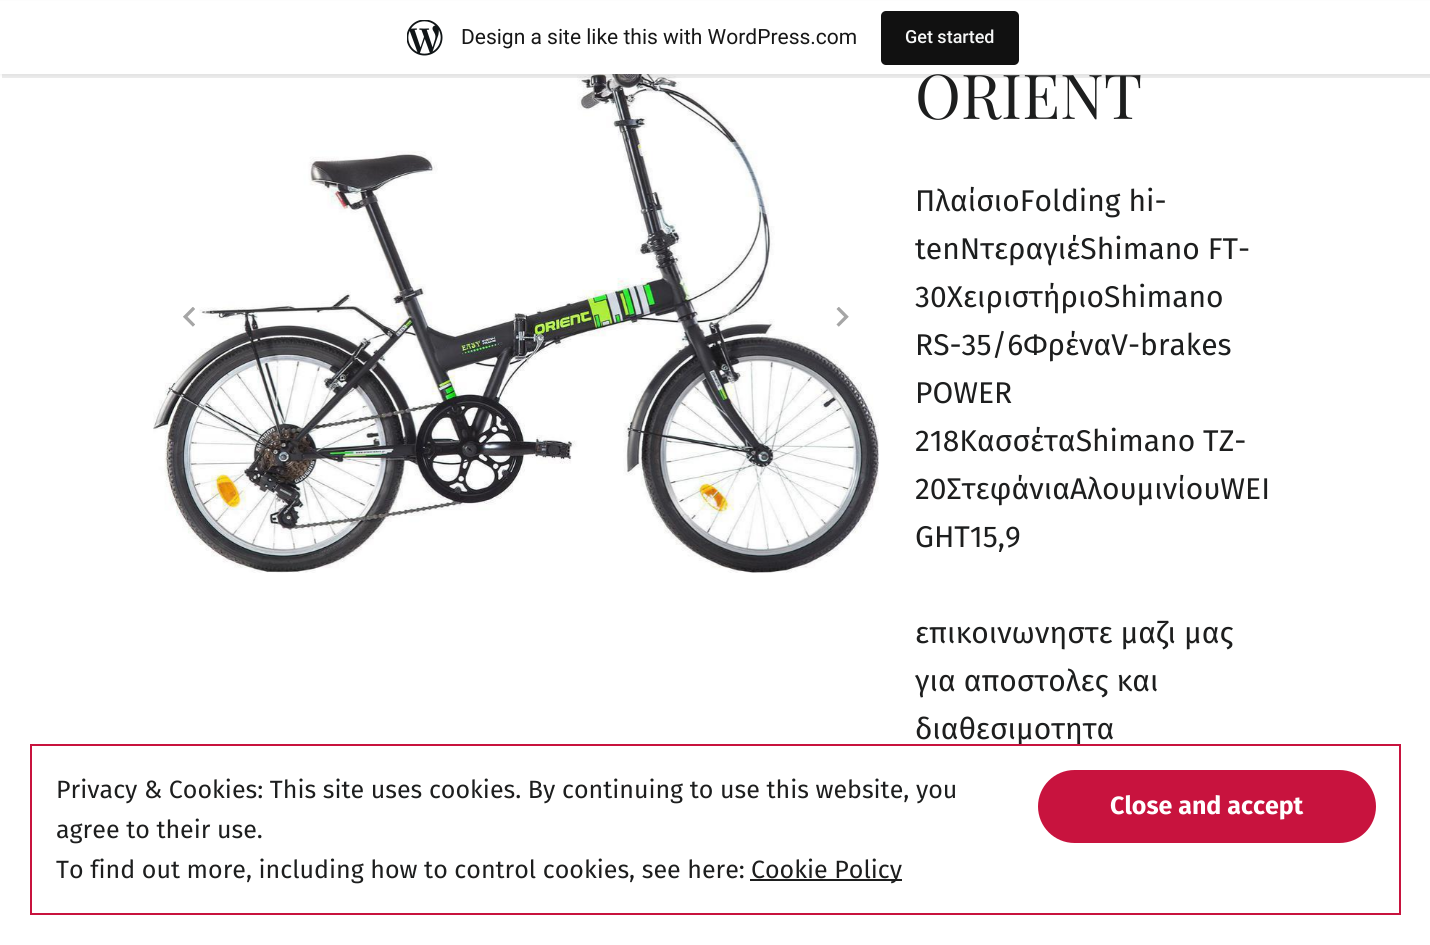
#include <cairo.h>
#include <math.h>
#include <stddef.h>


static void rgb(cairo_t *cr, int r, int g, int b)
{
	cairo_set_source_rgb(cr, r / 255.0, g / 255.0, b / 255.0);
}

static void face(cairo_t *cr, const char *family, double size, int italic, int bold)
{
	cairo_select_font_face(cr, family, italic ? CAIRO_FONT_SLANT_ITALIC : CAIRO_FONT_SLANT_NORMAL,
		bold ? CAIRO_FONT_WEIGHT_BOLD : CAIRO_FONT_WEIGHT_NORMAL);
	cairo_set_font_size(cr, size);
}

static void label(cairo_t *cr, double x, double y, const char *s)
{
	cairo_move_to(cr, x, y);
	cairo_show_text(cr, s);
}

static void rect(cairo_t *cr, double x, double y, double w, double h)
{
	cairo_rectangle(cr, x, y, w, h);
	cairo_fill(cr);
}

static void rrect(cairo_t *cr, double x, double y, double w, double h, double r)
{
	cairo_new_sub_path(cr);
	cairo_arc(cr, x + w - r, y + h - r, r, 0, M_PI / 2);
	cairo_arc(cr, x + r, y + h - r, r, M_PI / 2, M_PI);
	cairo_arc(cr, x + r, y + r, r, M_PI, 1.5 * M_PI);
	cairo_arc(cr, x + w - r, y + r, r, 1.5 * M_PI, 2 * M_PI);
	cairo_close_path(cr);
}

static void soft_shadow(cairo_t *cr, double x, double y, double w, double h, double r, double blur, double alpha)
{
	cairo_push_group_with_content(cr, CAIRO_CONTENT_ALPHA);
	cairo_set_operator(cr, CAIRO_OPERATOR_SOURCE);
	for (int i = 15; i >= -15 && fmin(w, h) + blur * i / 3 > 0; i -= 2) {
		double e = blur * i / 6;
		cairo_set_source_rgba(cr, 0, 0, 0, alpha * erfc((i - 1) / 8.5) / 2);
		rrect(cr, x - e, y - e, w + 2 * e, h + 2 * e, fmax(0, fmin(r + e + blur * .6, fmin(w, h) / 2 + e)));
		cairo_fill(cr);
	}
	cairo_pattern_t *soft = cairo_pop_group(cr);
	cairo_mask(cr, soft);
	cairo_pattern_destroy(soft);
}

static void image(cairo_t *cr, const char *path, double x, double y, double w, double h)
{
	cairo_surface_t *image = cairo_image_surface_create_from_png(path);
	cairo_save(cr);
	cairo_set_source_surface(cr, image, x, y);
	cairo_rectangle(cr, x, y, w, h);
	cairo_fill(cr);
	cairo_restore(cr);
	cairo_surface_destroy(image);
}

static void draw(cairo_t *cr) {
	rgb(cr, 255, 255, 255);
	cairo_paint(cr);
	image(cr, "image1.png", 153, 74, 726, 499);
	rgb(cr, 0, 0, 0);
	soft_shadow(cr, 0, 2, 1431, 73, 0, 1.5, 0.05);
	cairo_set_source_rgba(cr, 0, 0, 0, 0.08);
	cairo_new_path(cr);
	cairo_move_to(cr, 2, 74);
	cairo_line_to(cr, 2, 78);
	cairo_line_to(cr, 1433, 78);
	cairo_line_to(cr, 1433, 5);
	cairo_line_to(cr, 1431, 5);
	cairo_line_to(cr, 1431, 74);
	cairo_close_path(cr);
	cairo_fill(cr);
	rgb(cr, 255, 255, 255);
	rect(cr, 0, 1, 1430, 73);
	image(cr, "image0.png", 407, 20, 36, 36);
	face(cr, "Roboto", 21, 0, 0);
	rgb(cr, 23, 23, 23);
	label(cr, 461, 44, "Design a site like this with WordPress.com");
	rgb(cr, 17, 17, 17);
	rrect(cr, 881, 11, 138, 54, 5);
	cairo_fill(cr);
	face(cr, "Roboto Medium", 18, 0, 0);
	rgb(cr, 246, 247, 247);
	label(cr, 905, 43, "Get started");
	cairo_set_source_rgba(cr, 1, 1, 1, 0.35);
	rrect(cr, 168, 294, 42, 45, 6);
	cairo_fill(cr);
	image(cr, "image2.png", 183, 307, 12, 20);
	image(cr, "image3.png", 836, 307, 13, 20);
	face(cr, "Playfair Display", 62, 0, 0);
	rgb(cr, 29, 30, 30);
	label(cr, 915, 119, "ORIENT");
	face(cr, "Fira Sans", 30, 0, 0);
	label(cr, 915, 211, "ΠλαίσιοFolding hi-");
	label(cr, 915, 259, "tenΝτεραγιέShimano FT-");
	label(cr, 915, 307, "30ΧειριστήριοShimano");
	label(cr, 915, 355, "RS-35/6ΦρέναV-brakes");
	label(cr, 915, 403, "POWER");
	label(cr, 915, 451, "218ΚασσέταShimano TZ-");
	label(cr, 915, 499, "20ΣτεφάνιαΑλουμινίουWEI");
	label(cr, 915, 547, "GHT15,9");
	label(cr, 915, 643, "επικοινωνηστε μαζι μας");
	label(cr, 915, 691, "για αποστολες και");
	label(cr, 915, 739, "διαθεσιμοτητα");
	cairo_rectangle(cr, 31, 745, 1369, 169);
	rgb(cr, 200, 19, 62);
	cairo_stroke(cr);
	face(cr, "Fira Sans", 25, 0, 0);
	rgb(cr, 29, 30, 30);
	label(cr, 56, 798, "Privacy & Cookies: This site uses cookies. By continuing to use this website, you");
	rgb(cr, 200, 19, 62);
	rrect(cr, 1038, 770, 338, 73, 36.5);
	cairo_fill(cr);
	face(cr, "Fira Sans", 25, 0, 1);
	rgb(cr, 255, 255, 255);
	label(cr, 1110, 814, "Close and accept");
	face(cr, "Fira Sans", 25, 0, 0);
	rgb(cr, 29, 30, 30);
	label(cr, 56, 838, "agree to their use.");
	label(cr, 56, 878, "To find out more, including how to control cookies, see here:");
	rect(cr, 750, 879, 152, 2);
	label(cr, 751, 878, "Cookie Policy");
}

int main(void) {
	cairo_surface_t *surface = cairo_image_surface_create(CAIRO_FORMAT_RGB24, 1430, 945);
	cairo_t *cr = cairo_create(surface);
	cairo_font_options_t *options = cairo_font_options_create();
	cairo_font_options_set_hint_metrics(options, CAIRO_HINT_METRICS_OFF);
	cairo_font_options_set_hint_style(options, CAIRO_HINT_STYLE_NONE);
	cairo_set_font_options(cr, options);
	cairo_set_miter_limit(cr, 4);
	draw(cr);
	cairo_surface_write_to_png(surface, "render.png");
	cairo_font_options_destroy(options);
	cairo_destroy(cr);
	cairo_surface_destroy(surface);
	return 0;
}
